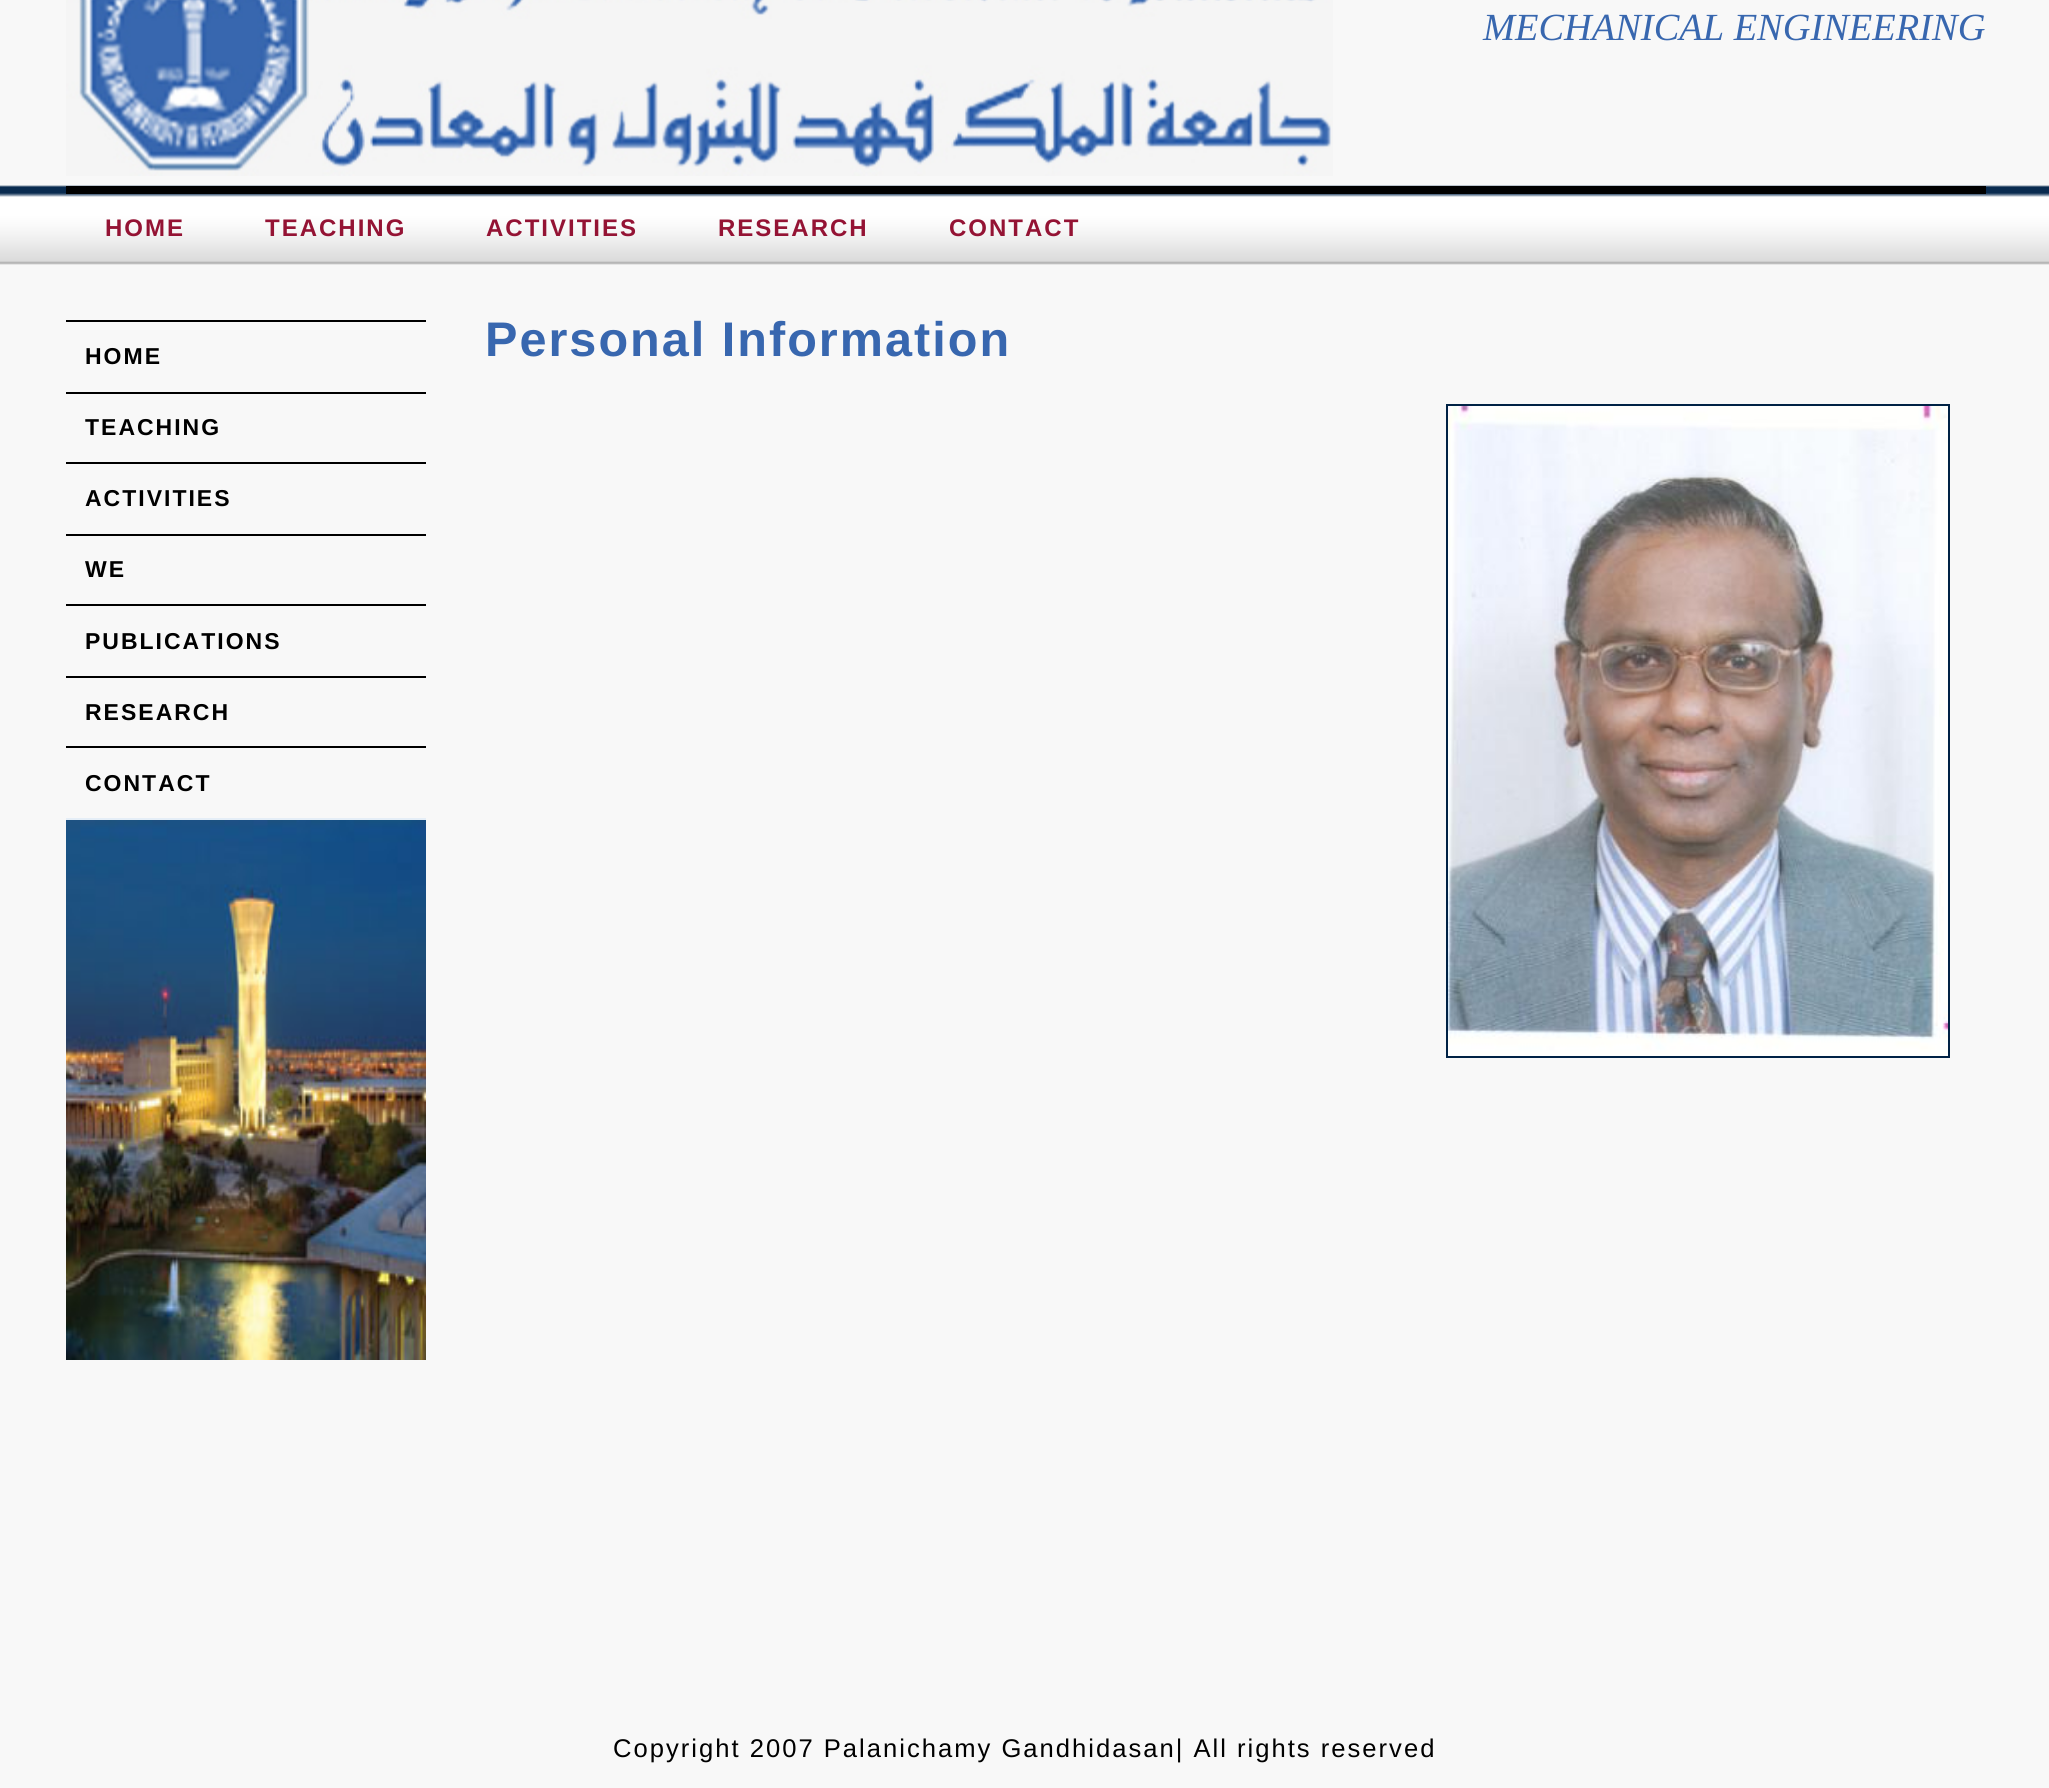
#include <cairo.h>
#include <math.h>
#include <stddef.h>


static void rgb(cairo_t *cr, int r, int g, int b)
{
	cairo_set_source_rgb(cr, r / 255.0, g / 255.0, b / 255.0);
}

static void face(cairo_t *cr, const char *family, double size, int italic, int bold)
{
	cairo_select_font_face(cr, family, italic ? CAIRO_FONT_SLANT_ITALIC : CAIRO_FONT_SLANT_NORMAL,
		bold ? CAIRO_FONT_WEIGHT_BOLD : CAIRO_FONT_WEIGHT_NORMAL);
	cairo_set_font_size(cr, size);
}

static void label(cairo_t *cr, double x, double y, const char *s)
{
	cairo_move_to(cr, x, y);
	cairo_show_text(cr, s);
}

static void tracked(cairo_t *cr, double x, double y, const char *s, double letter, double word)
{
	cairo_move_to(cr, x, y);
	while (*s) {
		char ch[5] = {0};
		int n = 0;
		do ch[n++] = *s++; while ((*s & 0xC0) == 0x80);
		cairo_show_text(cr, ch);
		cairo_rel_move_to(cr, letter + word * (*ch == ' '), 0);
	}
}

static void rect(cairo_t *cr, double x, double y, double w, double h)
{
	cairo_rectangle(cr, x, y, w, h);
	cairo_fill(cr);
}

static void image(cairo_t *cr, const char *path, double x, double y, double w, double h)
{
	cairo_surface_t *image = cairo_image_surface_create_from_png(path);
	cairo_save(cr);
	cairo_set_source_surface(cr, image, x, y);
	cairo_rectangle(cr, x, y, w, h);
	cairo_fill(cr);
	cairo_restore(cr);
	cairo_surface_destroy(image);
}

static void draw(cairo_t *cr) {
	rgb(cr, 248, 248, 248);
	cairo_paint(cr);
	image(cr, "image0.png", 0, 185, 2049, 80);
	image(cr, "image1.png", 66, 0, 1267, 176);
	face(cr, "Liberation Serif", 38.4, 1, 0);
	rgb(cr, 56, 103, 175);
	label(cr, 1483, 40, "MECHANICAL ENGINEERING");
	rgb(cr, 0, 0, 0);
	rect(cr, 66, 186, 1920, 8);
	face(cr, "Liberation Sans", 24, 0, 1);
	rgb(cr, 148, 19, 52);
	tracked(cr, 105, 236, "HOME", 2, 0);
	tracked(cr, 265, 236, "TEACHING", 2, 0);
	tracked(cr, 486, 236, "ACTIVITIES", 2, 0);
	tracked(cr, 718, 236, "RESEARCH", 2, 0);
	tracked(cr, 949, 236, "CONTACT", 2, 0);
	face(cr, "Liberation Sans", 48.6, 0, 1);
	rgb(cr, 56, 103, 175);
	tracked(cr, 485, 356, "Personal Information", 2, 0);
	cairo_rectangle(cr, 1447, 405, 502, 652);
	rgb(cr, 0, 34, 69);
	cairo_stroke(cr);
	image(cr, "image2.png", 1448, 406, 500, 650);
	rgb(cr, 229, 238, 247);
	rect(cr, 66, 818, 360, 2);
	rgb(cr, 0, 0, 0);
	rect(cr, 66, 320, 360, 2);
	face(cr, "Liberation Sans", 23, 0, 1);
	tracked(cr, 85, 364, "HOME", 2, 0);
	rect(cr, 66, 392, 360, 2);
	tracked(cr, 85, 435, "TEACHING", 2, 0);
	rect(cr, 66, 462, 360, 2);
	tracked(cr, 85, 506, "ACTIVITIES", 2, 0);
	rect(cr, 66, 534, 360, 2);
	tracked(cr, 85, 577, "WE", 2, 0);
	rect(cr, 66, 604, 360, 2);
	tracked(cr, 85, 649, "PUBLICATIONS", 2, 0);
	rect(cr, 66, 676, 360, 2);
	tracked(cr, 85, 720, "RESEARCH", 2, 0);
	rect(cr, 66, 746, 360, 2);
	tracked(cr, 85, 791, "CONTACT", 2, 0);
	image(cr, "image3.png", 66, 820, 360, 540);
	face(cr, "Liberation Sans", 25.6, 0, 0);
	tracked(cr, 613, 1757, "Copyright 2007 Palanichamy Gandhidasan| All rights reserved", 2, 0);
}

int main(void) {
	cairo_surface_t *surface = cairo_image_surface_create(CAIRO_FORMAT_RGB24, 2049, 1788);
	cairo_t *cr = cairo_create(surface);
	cairo_font_options_t *options = cairo_font_options_create();
	cairo_font_options_set_hint_metrics(options, CAIRO_HINT_METRICS_OFF);
	cairo_font_options_set_hint_style(options, CAIRO_HINT_STYLE_NONE);
	cairo_set_font_options(cr, options);
	cairo_set_miter_limit(cr, 4);
	draw(cr);
	cairo_surface_write_to_png(surface, "render.png");
	cairo_font_options_destroy(options);
	cairo_destroy(cr);
	cairo_surface_destroy(surface);
	return 0;
}
